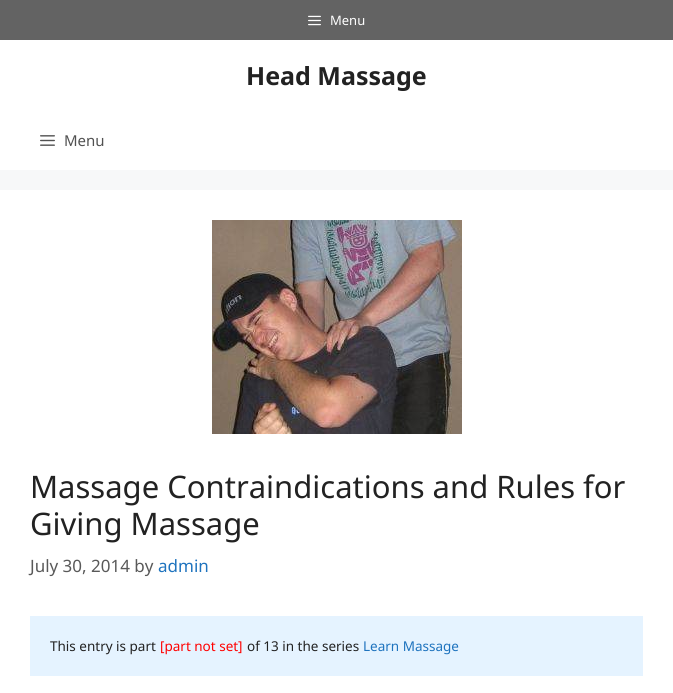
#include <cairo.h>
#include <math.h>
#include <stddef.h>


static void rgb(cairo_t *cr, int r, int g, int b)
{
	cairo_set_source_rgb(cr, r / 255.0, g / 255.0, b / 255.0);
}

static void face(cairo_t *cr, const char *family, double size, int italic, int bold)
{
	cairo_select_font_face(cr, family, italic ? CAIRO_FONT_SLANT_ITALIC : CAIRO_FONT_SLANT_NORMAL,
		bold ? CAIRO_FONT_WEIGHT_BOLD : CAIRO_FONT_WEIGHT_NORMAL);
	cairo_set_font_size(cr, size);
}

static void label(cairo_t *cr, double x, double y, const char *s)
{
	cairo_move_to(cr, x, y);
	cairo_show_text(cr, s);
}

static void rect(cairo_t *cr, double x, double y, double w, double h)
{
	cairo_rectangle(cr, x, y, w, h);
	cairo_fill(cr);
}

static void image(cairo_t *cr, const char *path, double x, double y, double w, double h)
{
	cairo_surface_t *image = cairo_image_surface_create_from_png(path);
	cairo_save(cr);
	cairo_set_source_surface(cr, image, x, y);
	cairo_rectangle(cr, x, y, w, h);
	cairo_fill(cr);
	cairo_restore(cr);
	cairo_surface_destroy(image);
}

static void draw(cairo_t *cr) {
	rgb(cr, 247, 248, 249);
	cairo_paint(cr);
	rgb(cr, 99, 99, 99);
	rect(cr, 0, 0, 673, 40);
	image(cr, "image0.png", 308, 15, 13, 11);
	face(cr, "Noto Sans", 13, 0, 0);
	rgb(cr, 255, 255, 255);
	label(cr, 330, 25, "Menu");
	rect(cr, 0, 40, 673, 130);
	face(cr, "Noto Sans", 25, 0, 1);
	rgb(cr, 34, 34, 34);
	label(cr, 246, 85, "Head Massage");
	image(cr, "image1.png", 40, 135, 15, 11);
	face(cr, "Noto Sans", 15, 0, 0);
	rgb(cr, 81, 81, 81);
	label(cr, 64, 146, "Menu");
	rgb(cr, 255, 255, 255);
	rect(cr, 0, 190, 673, 503);
	image(cr, "image2.png", 212, 220, 250, 214);
	face(cr, "Noto Sans", 31, 0, 0);
	rgb(cr, 34, 34, 34);
	label(cr, 30, 498, "Massage Contraindications and Rules for");
	label(cr, 30, 535, "Giving Massage");
	face(cr, "Noto Sans", 17, 0, 0);
	rgb(cr, 89, 89, 89);
	label(cr, 30, 572, "July 30, 2014 by");
	rgb(cr, 30, 115, 190);
	label(cr, 158, 572, "admin");
	rgb(cr, 229, 243, 255);
	rect(cr, 30, 616, 613, 60);
	face(cr, "Noto Sans", 13.5, 0, 0);
	rgb(cr, 34, 34, 34);
	label(cr, 50, 651, "This entry is part");
	rgb(cr, 255, 0, 0);
	label(cr, 160, 651, "[part not set]");
	rgb(cr, 34, 34, 34);
	label(cr, 247, 651, "of 13 in the series");
	rgb(cr, 30, 115, 190);
	label(cr, 363, 651, "Learn Massage");
}

int main(void) {
	cairo_surface_t *surface = cairo_image_surface_create(CAIRO_FORMAT_RGB24, 673, 693);
	cairo_t *cr = cairo_create(surface);
	cairo_font_options_t *options = cairo_font_options_create();
	cairo_font_options_set_hint_metrics(options, CAIRO_HINT_METRICS_OFF);
	cairo_font_options_set_hint_style(options, CAIRO_HINT_STYLE_NONE);
	cairo_set_font_options(cr, options);
	cairo_set_miter_limit(cr, 4);
	draw(cr);
	cairo_surface_write_to_png(surface, "render.png");
	cairo_font_options_destroy(options);
	cairo_destroy(cr);
	cairo_surface_destroy(surface);
	return 0;
}
